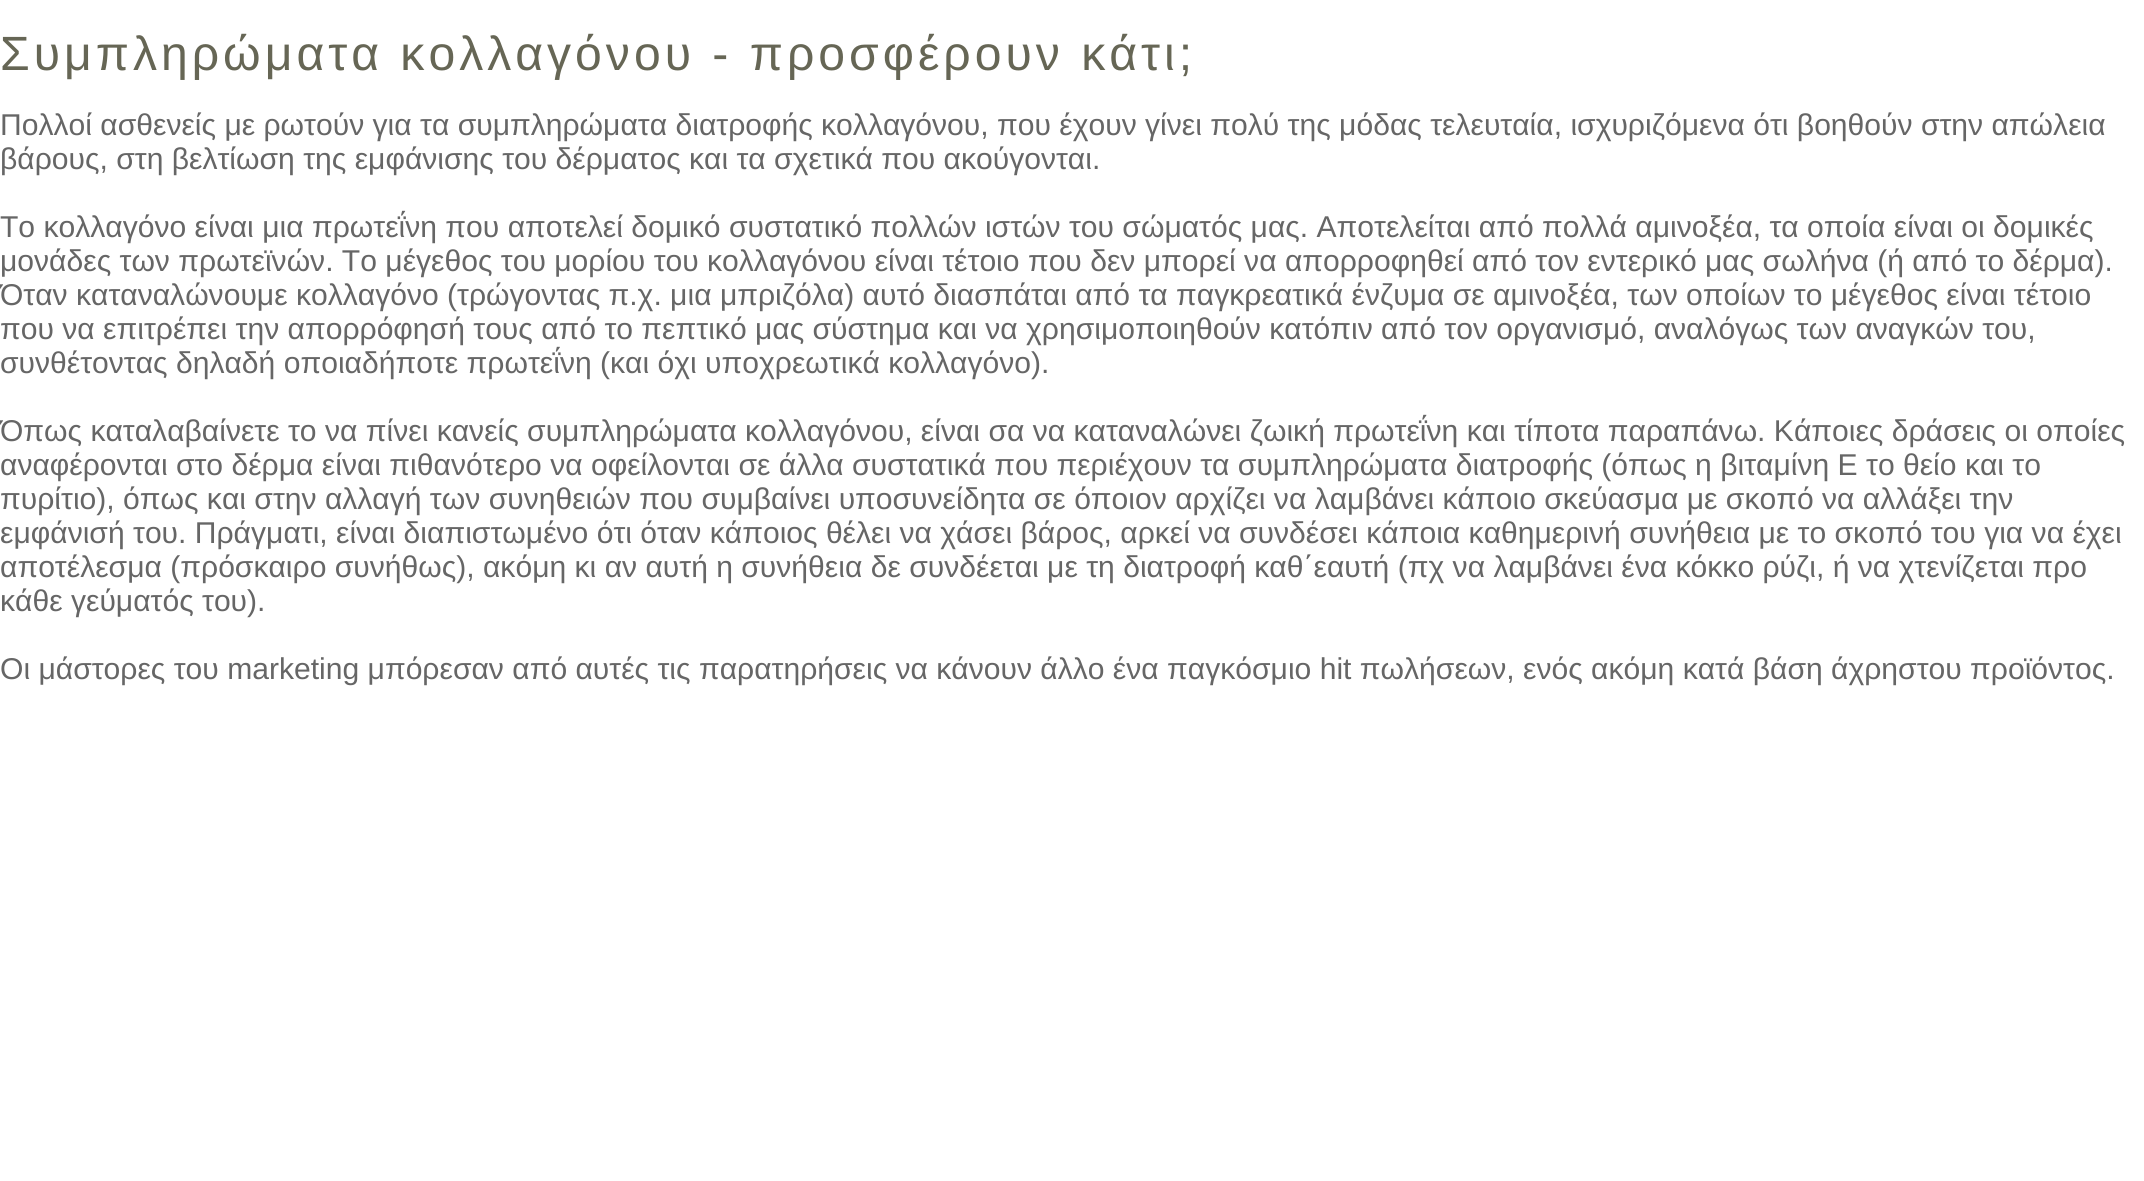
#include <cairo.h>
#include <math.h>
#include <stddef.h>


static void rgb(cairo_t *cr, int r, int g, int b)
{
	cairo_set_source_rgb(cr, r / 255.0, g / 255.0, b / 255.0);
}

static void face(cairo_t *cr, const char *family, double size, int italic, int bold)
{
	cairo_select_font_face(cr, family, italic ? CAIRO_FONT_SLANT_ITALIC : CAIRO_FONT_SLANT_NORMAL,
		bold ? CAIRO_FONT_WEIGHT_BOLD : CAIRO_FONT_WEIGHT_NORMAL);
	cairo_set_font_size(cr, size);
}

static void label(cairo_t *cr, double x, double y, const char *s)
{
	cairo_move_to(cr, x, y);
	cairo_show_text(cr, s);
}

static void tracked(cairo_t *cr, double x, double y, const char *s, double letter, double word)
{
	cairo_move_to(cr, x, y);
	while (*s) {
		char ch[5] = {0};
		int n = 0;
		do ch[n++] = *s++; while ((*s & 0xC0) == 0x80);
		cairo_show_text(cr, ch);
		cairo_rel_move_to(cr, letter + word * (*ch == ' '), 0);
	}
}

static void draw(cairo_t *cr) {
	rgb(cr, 255, 255, 255);
	cairo_paint(cr);
	face(cr, "Liberation Sans", 48.1, 0, 0);
	rgb(cr, 102, 102, 85);
	tracked(cr, 0, 70, "Συμπληρώματα κολλαγόνου - προσφέρουν κάτι;", 4, 0);
	face(cr, "Liberation Sans", 30.08, 0, 0);
	rgb(cr, 102, 102, 102);
	label(cr, 0, 135, "Πολλοί ασθενείς με ρωτούν για τα συμπληρώματα διατροφής κολλαγόνου, που έχουν γίνει πολύ της μόδας τελευταία, ισχυριζόμενα ότι βοηθούν στην απώλεια");
	label(cr, 0, 169, "βάρους, στη βελτίωση της εμφάνισης του δέρματος και τα σχετικά που ακούγονται.");
	label(cr, 0, 237, "Το κολλαγόνο είναι μια πρωτεΐνη που αποτελεί δομικό συστατικό πολλών ιστών του σώματός μας. Αποτελείται από πολλά αμινοξέα, τα οποία είναι οι δομικές");
	label(cr, 0, 271, "μονάδες των πρωτεϊνών. Το μέγεθος του μορίου του κολλαγόνου είναι τέτοιο που δεν μπορεί να απορροφηθεί από τον εντερικό μας σωλήνα (ή από το δέρμα).");
	label(cr, 0, 305, "Όταν καταναλώνουμε κολλαγόνο (τρώγοντας π.χ. μια μπριζόλα) αυτό διασπάται από τα παγκρεατικά ένζυμα σε αμινοξέα, των οποίων το μέγεθος είναι τέτοιο");
	label(cr, 0, 339, "που να επιτρέπει την απορρόφησή τους από το πεπτικό μας σύστημα και να χρησιμοποιηθούν κατόπιν από τον οργανισμό, αναλόγως των αναγκών του,");
	label(cr, 0, 373, "συνθέτοντας δηλαδή οποιαδήποτε πρωτεΐνη (και όχι υποχρεωτικά κολλαγόνο).");
	label(cr, 0, 441, "Όπως καταλαβαίνετε το να πίνει κανείς συμπληρώματα κολλαγόνου, είναι σα να καταναλώνει ζωική πρωτεΐνη και τίποτα παραπάνω. Κάποιες δράσεις οι οποίες");
	label(cr, 0, 475, "αναφέρονται στο δέρμα είναι πιθανότερο να οφείλονται σε άλλα συστατικά που περιέχουν τα συμπληρώματα διατροφής (όπως η βιταμίνη Ε το θείο και το");
	label(cr, 0, 509, "πυρίτιο), όπως και στην αλλαγή των συνηθειών που συμβαίνει υποσυνείδητα σε όποιον αρχίζει να λαμβάνει κάποιο σκεύασμα με σκοπό να αλλάξει την");
	label(cr, 0, 543, "εμφάνισή του. Πράγματι, είναι διαπιστωμένο ότι όταν κάποιος θέλει να χάσει βάρος, αρκεί να συνδέσει κάποια καθημερινή συνήθεια με το σκοπό του για να έχει");
	label(cr, 0, 577, "αποτέλεσμα (πρόσκαιρο συνήθως), ακόμη κι αν αυτή η συνήθεια δε συνδέεται με τη διατροφή καθ΄εαυτή (πχ να λαμβάνει ένα κόκκο ρύζι, ή να χτενίζεται προ");
	label(cr, 0, 611, "κάθε γεύματός του).");
	label(cr, 0, 679, "Οι μάστορες του marketing μπόρεσαν από αυτές τις παρατηρήσεις να κάνουν άλλο ένα παγκόσμιο hit πωλήσεων, ενός ακόμη κατά βάση άχρηστου προϊόντος.");
}

int main(void) {
	cairo_surface_t *surface = cairo_image_surface_create(CAIRO_FORMAT_RGB24, 2144, 1181);
	cairo_t *cr = cairo_create(surface);
	cairo_font_options_t *options = cairo_font_options_create();
	cairo_font_options_set_hint_metrics(options, CAIRO_HINT_METRICS_OFF);
	cairo_font_options_set_hint_style(options, CAIRO_HINT_STYLE_NONE);
	cairo_set_font_options(cr, options);
	cairo_set_miter_limit(cr, 4);
	draw(cr);
	cairo_surface_write_to_png(surface, "render.png");
	cairo_font_options_destroy(options);
	cairo_destroy(cr);
	cairo_surface_destroy(surface);
	return 0;
}
